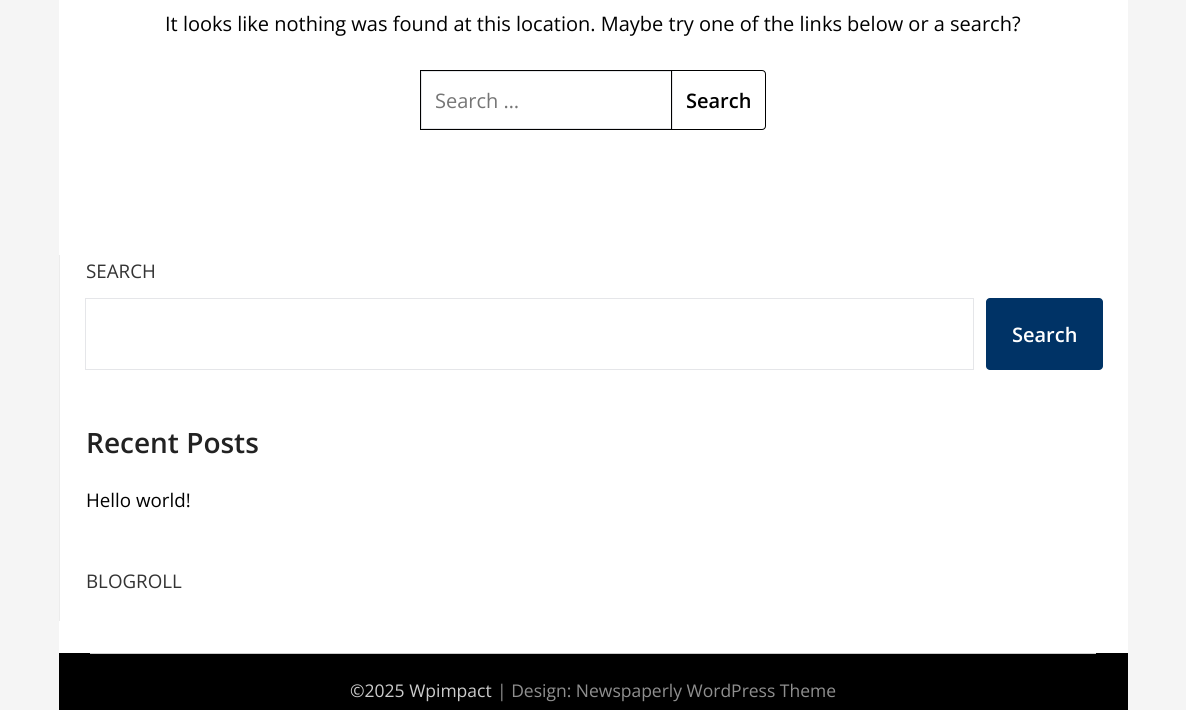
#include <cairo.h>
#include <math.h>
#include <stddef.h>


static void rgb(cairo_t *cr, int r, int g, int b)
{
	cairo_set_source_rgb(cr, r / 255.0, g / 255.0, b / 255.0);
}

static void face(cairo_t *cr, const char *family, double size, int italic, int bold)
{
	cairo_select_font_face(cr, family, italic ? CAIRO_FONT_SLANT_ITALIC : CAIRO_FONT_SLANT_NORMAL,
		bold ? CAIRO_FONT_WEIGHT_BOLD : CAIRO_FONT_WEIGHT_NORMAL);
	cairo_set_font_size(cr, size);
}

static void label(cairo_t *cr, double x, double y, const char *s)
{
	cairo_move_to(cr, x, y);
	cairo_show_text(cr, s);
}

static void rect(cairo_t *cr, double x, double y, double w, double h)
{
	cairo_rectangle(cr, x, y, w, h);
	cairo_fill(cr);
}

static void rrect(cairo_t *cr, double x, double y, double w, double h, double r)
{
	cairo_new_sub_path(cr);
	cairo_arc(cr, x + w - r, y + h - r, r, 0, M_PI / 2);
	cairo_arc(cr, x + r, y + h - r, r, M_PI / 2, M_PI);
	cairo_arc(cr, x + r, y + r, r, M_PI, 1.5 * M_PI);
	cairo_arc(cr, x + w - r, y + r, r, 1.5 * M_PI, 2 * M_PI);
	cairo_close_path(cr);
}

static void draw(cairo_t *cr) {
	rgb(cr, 245, 245, 245);
	cairo_paint(cr);
	rgb(cr, 255, 255, 255);
	rect(cr, 59, 0, 1069, 653);
	face(cr, "Open Sans", 20, 0, 0);
	rgb(cr, 0, 0, 0);
	label(cr, 165, 31, "It looks like nothing was found at this location. Maybe try one of the links below or a search?");
	rect(cr, 420, 70, 253, 1);
	rect(cr, 420, 129, 253, 1);
	rect(cr, 420, 70, 1, 60);
	cairo_rectangle(cr, 421.5, 71.5, 251, 57);
	rgb(cr, 229, 230, 233);
	cairo_set_line_width(cr, 1);
	cairo_stroke(cr);
	rgb(cr, 117, 117, 117);
	label(cr, 435, 108, "Search …");
	cairo_new_path(cr);
	cairo_move_to(cr, 671.5, 70.5);
	cairo_line_to(cr, 762, 70.5);
	cairo_curve_to(cr, 764, 70.5, 765.5, 72, 765.5, 74);
	cairo_line_to(cr, 765.5, 126);
	cairo_curve_to(cr, 765.5, 128, 764, 129.5, 762, 129.5);
	cairo_line_to(cr, 671.5, 129.5);
	cairo_close_path(cr);
	rgb(cr, 0, 0, 0);
	cairo_stroke(cr);
	face(cr, "Open Sans SemiBold", 20, 0, 0);
	label(cr, 686, 108, "Search");
	rgb(cr, 236, 236, 236);
	rect(cr, 59, 255, 1, 366);
	face(cr, "Open Sans", 18.75, 0, 0);
	rgb(cr, 51, 51, 51);
	label(cr, 86, 278, "SEARCH");
	cairo_rectangle(cr, 85.5, 298.5, 888, 71);
	rgb(cr, 229, 230, 233);
	cairo_stroke(cr);
	rgb(cr, 0, 51, 102);
	rrect(cr, 986, 298, 117, 72, 4);
	cairo_fill(cr);
	face(cr, "Open Sans SemiBold", 20, 0, 0);
	rgb(cr, 255, 255, 255);
	label(cr, 1012, 342, "Search");
	face(cr, "Open Sans SemiBold", 28, 0, 0);
	rgb(cr, 34, 34, 34);
	label(cr, 86, 453, "Recent Posts");
	face(cr, "Open Sans", 18.75, 0, 0);
	rgb(cr, 0, 0, 0);
	label(cr, 86, 507, "Hello world!");
	rgb(cr, 51, 51, 51);
	label(cr, 86, 588, "BLOGROLL");
	rgb(cr, 0, 0, 0);
	rect(cr, 59, 653, 1069, 57);
	rgb(cr, 204, 204, 204);
	rect(cr, 90, 653, 1006, 1);
	face(cr, "Open Sans", 17.5, 0, 0);
	label(cr, 350, 697, "©2025 Wpimpact");
	rgb(cr, 143, 143, 143);
	label(cr, 497, 697, "| Design: Newspaperly WordPress Theme");
}

int main(void) {
	cairo_surface_t *surface = cairo_image_surface_create(CAIRO_FORMAT_RGB24, 1186, 710);
	cairo_t *cr = cairo_create(surface);
	cairo_font_options_t *options = cairo_font_options_create();
	cairo_font_options_set_hint_metrics(options, CAIRO_HINT_METRICS_OFF);
	cairo_font_options_set_hint_style(options, CAIRO_HINT_STYLE_NONE);
	cairo_set_font_options(cr, options);
	cairo_set_miter_limit(cr, 4);
	draw(cr);
	cairo_surface_write_to_png(surface, "render.png");
	cairo_font_options_destroy(options);
	cairo_destroy(cr);
	cairo_surface_destroy(surface);
	return 0;
}
